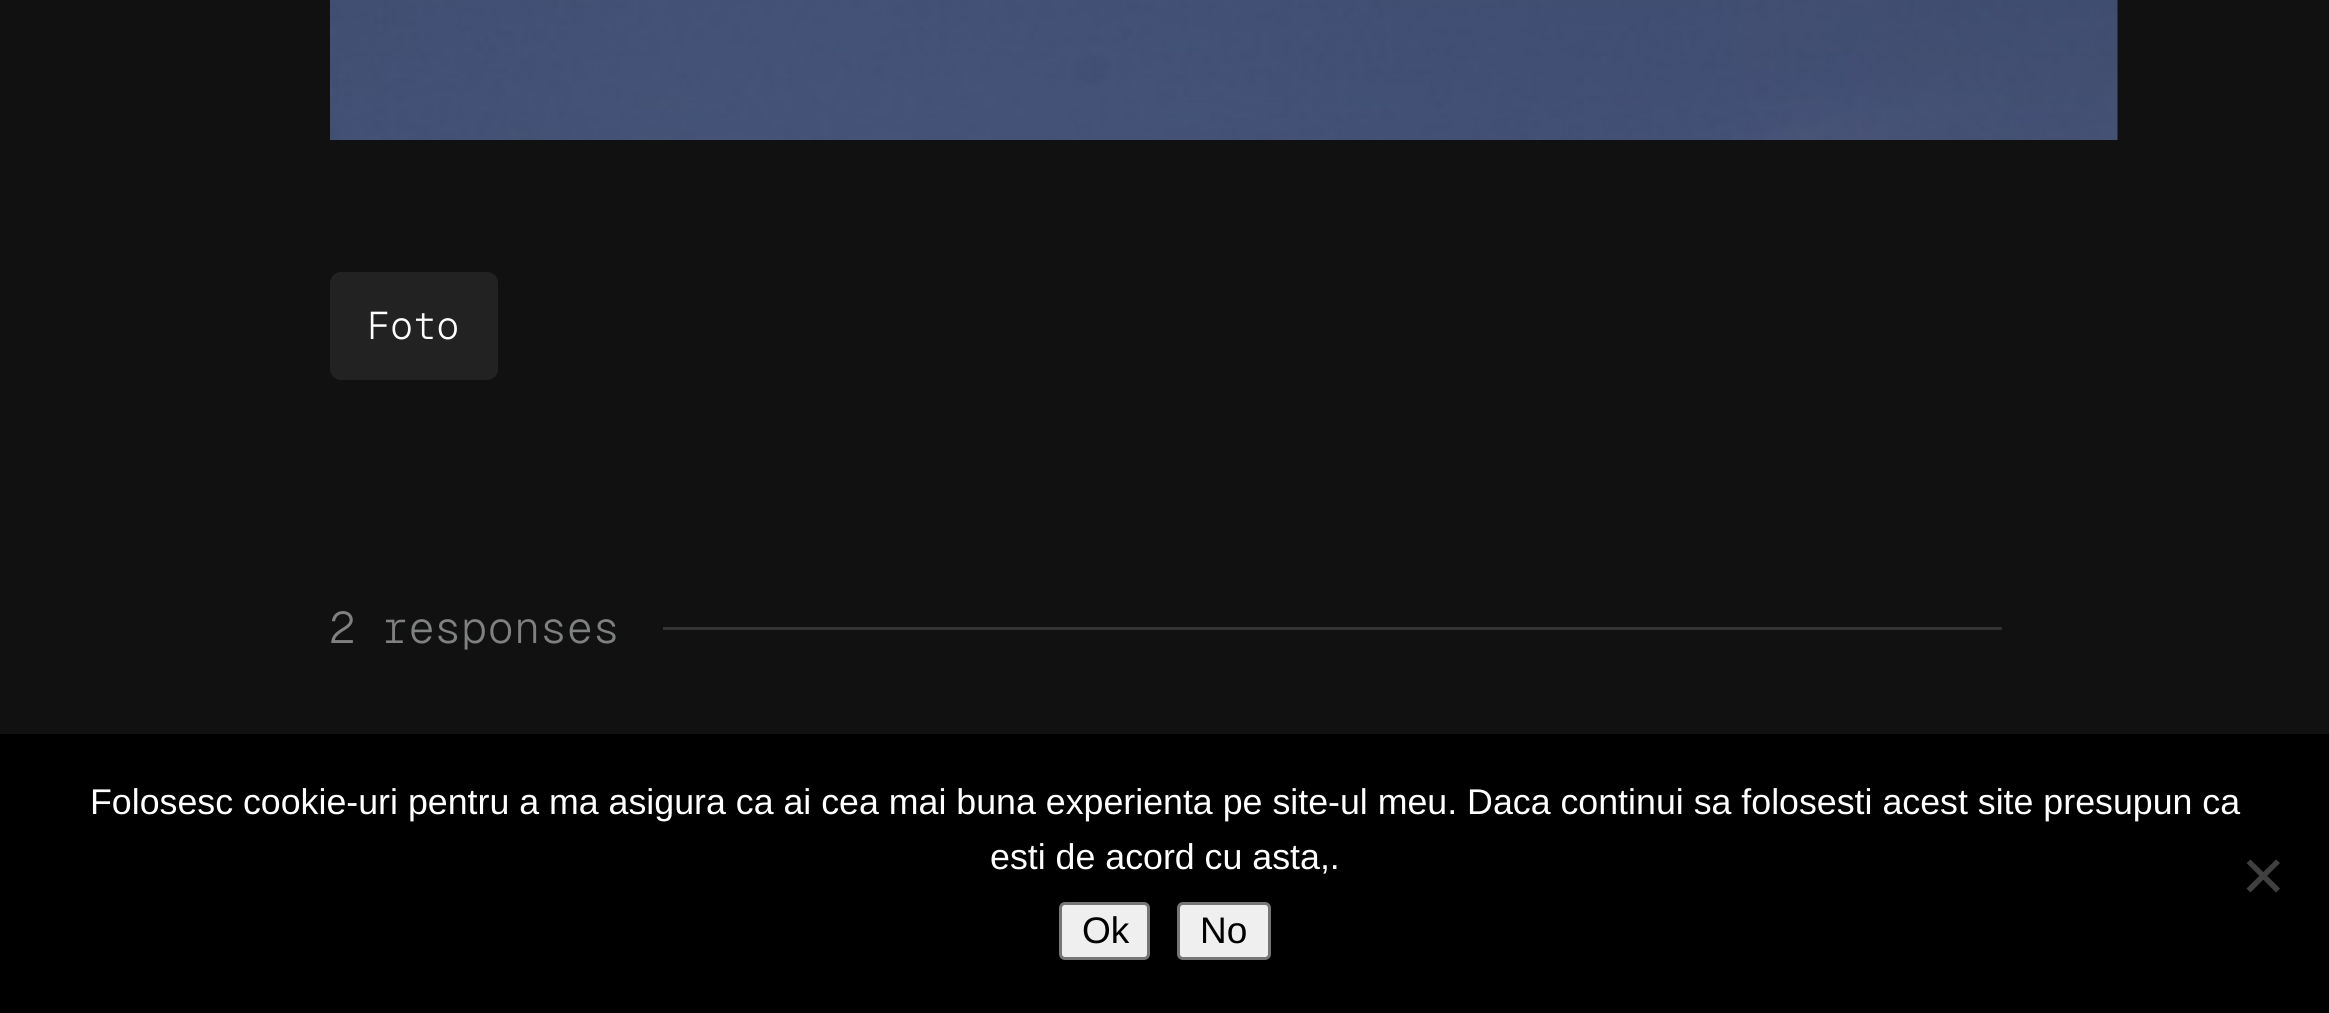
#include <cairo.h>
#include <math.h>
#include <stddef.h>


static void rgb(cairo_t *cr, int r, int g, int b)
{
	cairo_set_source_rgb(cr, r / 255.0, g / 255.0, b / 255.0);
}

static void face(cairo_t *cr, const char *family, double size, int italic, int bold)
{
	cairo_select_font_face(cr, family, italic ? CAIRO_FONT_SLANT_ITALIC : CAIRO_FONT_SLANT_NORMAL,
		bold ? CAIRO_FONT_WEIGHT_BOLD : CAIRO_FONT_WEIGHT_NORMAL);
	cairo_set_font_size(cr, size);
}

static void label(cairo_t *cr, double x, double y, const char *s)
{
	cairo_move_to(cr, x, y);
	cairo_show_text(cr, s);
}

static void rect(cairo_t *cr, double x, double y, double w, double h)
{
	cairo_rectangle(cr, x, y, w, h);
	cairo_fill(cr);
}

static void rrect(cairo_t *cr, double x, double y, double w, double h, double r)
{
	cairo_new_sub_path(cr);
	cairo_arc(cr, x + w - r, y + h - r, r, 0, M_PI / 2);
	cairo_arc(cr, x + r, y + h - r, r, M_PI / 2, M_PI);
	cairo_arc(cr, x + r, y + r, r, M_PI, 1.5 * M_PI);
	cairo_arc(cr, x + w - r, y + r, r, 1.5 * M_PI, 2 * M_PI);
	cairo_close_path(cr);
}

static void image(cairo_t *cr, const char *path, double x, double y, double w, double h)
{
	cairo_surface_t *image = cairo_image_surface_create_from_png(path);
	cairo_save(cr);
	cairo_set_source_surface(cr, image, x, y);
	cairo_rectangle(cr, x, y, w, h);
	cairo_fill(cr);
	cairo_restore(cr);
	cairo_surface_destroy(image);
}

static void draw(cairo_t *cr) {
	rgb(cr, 17, 17, 17);
	cairo_paint(cr);
	image(cr, "image0.png", 330, 0, 1788, 140);
	rgb(cr, 34, 34, 34);
	rrect(cr, 330, 272, 168, 108, 11);
	cairo_fill(cr);
	face(cr, "Geist Mono Light", 38.5, 0, 0);
	rgb(cr, 255, 255, 255);
	label(cr, 367, 339, "Foto");
	face(cr, "Geist Mono Light", 44, 0, 0);
	rgb(cr, 127, 128, 128);
	label(cr, 329, 643, "2 responses");
	rgb(cr, 51, 51, 51);
	rect(cr, 663, 627, 1339, 3);
	rgb(cr, 0, 0, 0);
	rect(cr, 0, 734, 2329, 279);
	face(cr, "Liberation Sans", 35.75, 0, 0);
	rgb(cr, 255, 255, 255);
	label(cr, 90, 814, "Folosesc cookie-uri pentru a ma asigura ca ai cea mai buna experienta pe site-ul meu. Daca continui sa folosesti acest site presupun ca");
	label(cr, 990, 869, "esti de acord cu asta,.");
	rgb(cr, 64, 64, 64);
	cairo_new_path(cr);
	cairo_move_to(cr, 2276, 859.5);
	cairo_line_to(cr, 2280, 863);
	cairo_line_to(cr, 2250.5, 892.5);
	cairo_line_to(cr, 2246.5, 888.5);
	cairo_close_path(cr);
	cairo_fill(cr);
	cairo_new_path(cr);
	cairo_move_to(cr, 2246.5, 863);
	cairo_line_to(cr, 2250.5, 859.5);
	cairo_line_to(cr, 2280, 888.5);
	cairo_line_to(cr, 2276, 892.5);
	cairo_close_path(cr);
	cairo_fill(cr);
	rgb(cr, 239, 239, 239);
	rrect(cr, 1060.5, 903.5, 88, 55, 4.5);
	cairo_fill_preserve(cr);
	rgb(cr, 118, 118, 118);
	cairo_set_line_width(cr, 3);
	cairo_stroke(cr);
	face(cr, "Liberation Sans", 37, 0, 0);
	rgb(cr, 0, 0, 0);
	label(cr, 1082, 943, "Ok");
	rgb(cr, 239, 239, 239);
	rrect(cr, 1178.5, 903.5, 91, 55, 4.5);
	cairo_fill_preserve(cr);
	rgb(cr, 118, 118, 118);
	cairo_stroke(cr);
	rgb(cr, 0, 0, 0);
	label(cr, 1200, 943, "No");
}

int main(void) {
	cairo_surface_t *surface = cairo_image_surface_create(CAIRO_FORMAT_RGB24, 2329, 1013);
	cairo_t *cr = cairo_create(surface);
	cairo_font_options_t *options = cairo_font_options_create();
	cairo_font_options_set_hint_metrics(options, CAIRO_HINT_METRICS_OFF);
	cairo_font_options_set_hint_style(options, CAIRO_HINT_STYLE_NONE);
	cairo_set_font_options(cr, options);
	cairo_set_miter_limit(cr, 4);
	draw(cr);
	cairo_surface_write_to_png(surface, "render.png");
	cairo_font_options_destroy(options);
	cairo_destroy(cr);
	cairo_surface_destroy(surface);
	return 0;
}
